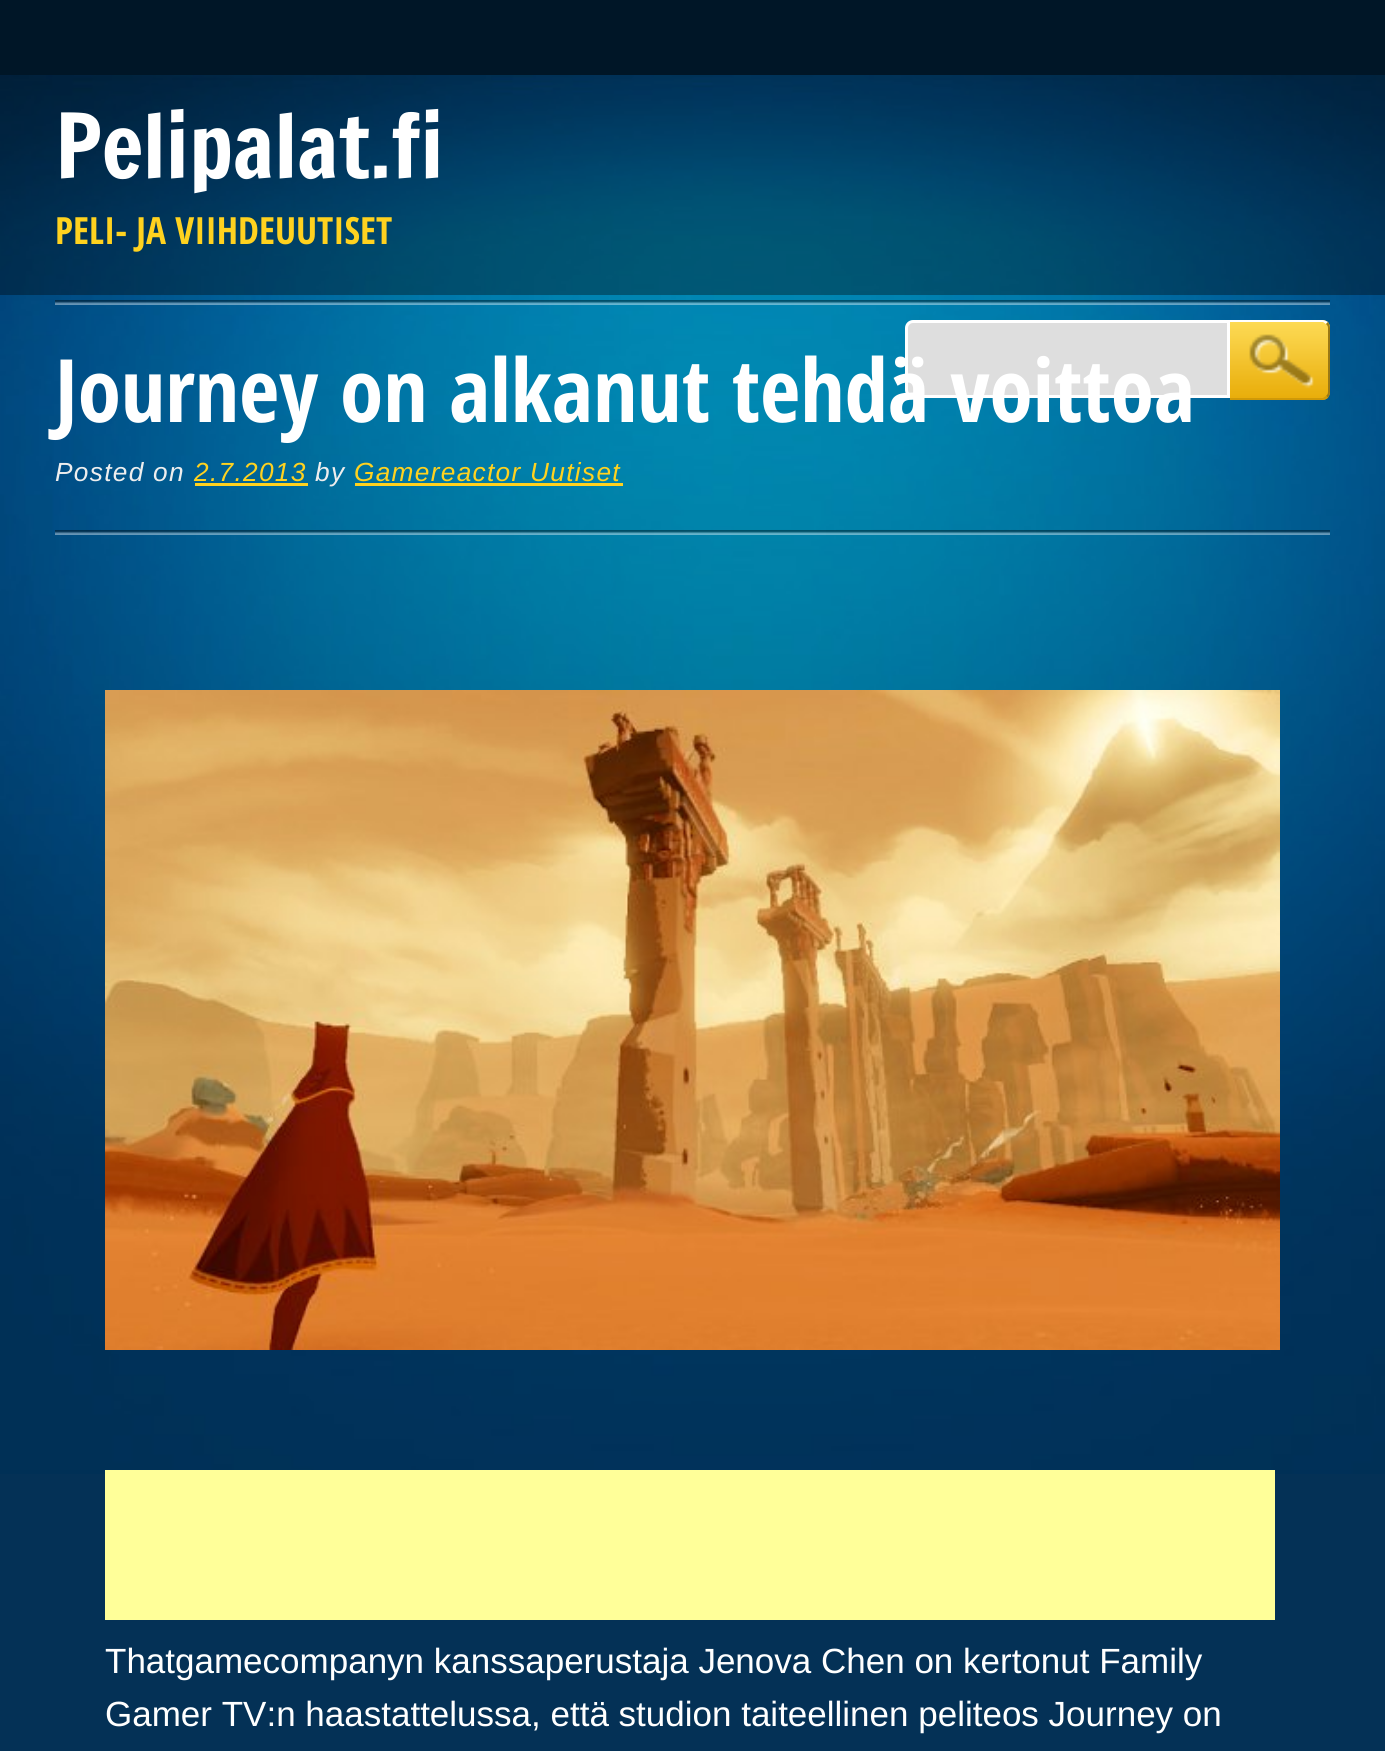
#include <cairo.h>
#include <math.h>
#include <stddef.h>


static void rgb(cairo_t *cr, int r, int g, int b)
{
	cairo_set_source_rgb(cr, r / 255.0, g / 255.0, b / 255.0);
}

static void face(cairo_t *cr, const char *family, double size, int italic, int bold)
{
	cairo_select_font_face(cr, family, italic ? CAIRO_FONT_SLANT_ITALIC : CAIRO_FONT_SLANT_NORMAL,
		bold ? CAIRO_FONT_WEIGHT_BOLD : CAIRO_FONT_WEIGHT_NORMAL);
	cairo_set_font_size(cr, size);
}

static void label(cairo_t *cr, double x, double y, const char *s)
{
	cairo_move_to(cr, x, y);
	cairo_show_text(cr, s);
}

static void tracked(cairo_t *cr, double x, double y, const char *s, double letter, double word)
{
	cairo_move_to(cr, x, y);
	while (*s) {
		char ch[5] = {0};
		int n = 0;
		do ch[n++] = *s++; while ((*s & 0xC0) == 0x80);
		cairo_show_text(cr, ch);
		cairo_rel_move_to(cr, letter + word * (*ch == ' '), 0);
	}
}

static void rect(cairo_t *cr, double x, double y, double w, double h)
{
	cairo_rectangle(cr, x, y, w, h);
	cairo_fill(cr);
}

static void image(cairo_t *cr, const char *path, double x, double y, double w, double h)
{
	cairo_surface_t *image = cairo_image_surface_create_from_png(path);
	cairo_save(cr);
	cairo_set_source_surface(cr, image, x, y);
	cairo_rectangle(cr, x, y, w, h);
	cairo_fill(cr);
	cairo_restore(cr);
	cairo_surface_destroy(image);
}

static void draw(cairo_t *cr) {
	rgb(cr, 0, 22, 39);
	cairo_paint(cr);
	rgb(cr, 4, 49, 86);
	rect(cr, 0, 1474, 1385, 277);
	image(cr, "image0.png", 0, 75, 1385, 1399);
	cairo_set_source_rgba(cr, 0, 0, 0, 0.35);
	rect(cr, 0, 75, 1385, 220);
	face(cr, "Francois One", 87.5, 0, 0);
	rgb(cr, 255, 255, 255);
	label(cr, 55, 178, "Pelipalat.fi");
	face(cr, "Open Sans Condensed", 37.5, 0, 1);
	rgb(cr, 255, 210, 31);
	label(cr, 55, 244, "PELI- JA VIIHDEUUTISET");
	rgb(cr, 222, 222, 222);
	cairo_new_path(cr);
	cairo_move_to(cr, 913, 321.5);
	cairo_line_to(cr, 1228.5, 321.5);
	cairo_line_to(cr, 1228.5, 396.5);
	cairo_line_to(cr, 913, 396.5);
	cairo_curve_to(cr, 909.5, 396.5, 906.5, 393.5, 906.5, 390);
	cairo_line_to(cr, 906.5, 328);
	cairo_curve_to(cr, 906.5, 324.5, 909.5, 321.5, 913, 321.5);
	cairo_close_path(cr);
	cairo_fill_preserve(cr);
	rgb(cr, 255, 255, 255);
	cairo_set_line_width(cr, 3);
	cairo_stroke(cr);
	image(cr, "image1.png", 1230, 320, 100, 80);
	cairo_new_path(cr);
	cairo_move_to(cr, 1230, 320);
	cairo_line_to(cr, 1230, 322);
	cairo_line_to(cr, 1323, 322);
	cairo_line_to(cr, 1326, 324);
	cairo_line_to(cr, 1328, 322);
	cairo_curve_to(cr, 1326, 321, 1324, 320, 1322, 320);
	cairo_close_path(cr);
	cairo_fill(cr);
	rgb(cr, 156, 121, 20);
	cairo_new_path(cr);
	cairo_move_to(cr, 1326, 396);
	cairo_curve_to(cr, 1327, 395, 1328, 394, 1328, 392);
	cairo_line_to(cr, 1328, 328);
	cairo_curve_to(cr, 1328, 326, 1327, 325, 1326, 324);
	cairo_line_to(cr, 1328, 322);
	cairo_curve_to(cr, 1329, 324, 1330, 326, 1330, 328);
	cairo_line_to(cr, 1330, 392);
	cairo_curve_to(cr, 1330, 394, 1329, 396, 1328, 398);
	cairo_close_path(cr);
	cairo_fill(cr);
	rgb(cr, 208, 153, 7);
	cairo_new_path(cr);
	cairo_move_to(cr, 1230, 398);
	cairo_line_to(cr, 1230, 400);
	cairo_line_to(cr, 1322, 400);
	cairo_curve_to(cr, 1324, 400, 1326, 399, 1328, 398);
	cairo_line_to(cr, 1326, 396);
	cairo_line_to(cr, 1323, 398);
	cairo_close_path(cr);
	cairo_fill(cr);
	image(cr, "image2.png", 55, 300, 1275, 5);
	image(cr, "image3.png", 55, 530, 1275, 5);
	face(cr, "Open Sans Condensed", 87.5, 0, 1);
	rgb(cr, 255, 255, 255);
	label(cr, 55, 422, "Journey on alkanut tehdä voittoa");
	face(cr, "Liberation Sans", 26.25, 1, 0);
	rgb(cr, 238, 238, 238);
	tracked(cr, 55, 481, "Posted on", 1.3, 0);
	rgb(cr, 255, 210, 31);
	tracked(cr, 194, 481, "2.7.2013", 1.3, 0);
	rect(cr, 195, 483, 113, 3);
	rgb(cr, 238, 238, 238);
	tracked(cr, 315, 481, "by", 1.3, 0);
	rgb(cr, 255, 210, 31);
	tracked(cr, 354, 481, "Gamereactor Uutiset", 1.3, 0);
	rect(cr, 355, 483, 268, 3);
	image(cr, "image4.png", 105, 690, 1175, 660);
	rgb(cr, 255, 255, 153);
	rect(cr, 105, 1470, 1170, 150);
	face(cr, "Liberation Sans", 35, 0, 0);
	rgb(cr, 255, 255, 255);
	label(cr, 105, 1673, "Thatgamecompanyn kanssaperustaja Jenova Chen on kertonut Family");
	label(cr, 105, 1726, "Gamer TV:n haastattelussa, että studion taiteellinen peliteos Journey on");
}

int main(void) {
	cairo_surface_t *surface = cairo_image_surface_create(CAIRO_FORMAT_RGB24, 1385, 1751);
	cairo_t *cr = cairo_create(surface);
	cairo_font_options_t *options = cairo_font_options_create();
	cairo_font_options_set_hint_metrics(options, CAIRO_HINT_METRICS_OFF);
	cairo_font_options_set_hint_style(options, CAIRO_HINT_STYLE_NONE);
	cairo_set_font_options(cr, options);
	cairo_set_miter_limit(cr, 4);
	draw(cr);
	cairo_surface_write_to_png(surface, "render.png");
	cairo_font_options_destroy(options);
	cairo_destroy(cr);
	cairo_surface_destroy(surface);
	return 0;
}
